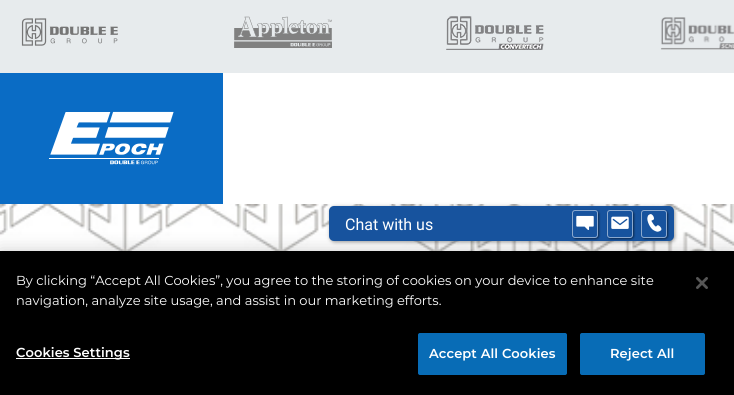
#include <cairo.h>
#include <math.h>
#include <stddef.h>


static void rgb(cairo_t *cr, int r, int g, int b)
{
	cairo_set_source_rgb(cr, r / 255.0, g / 255.0, b / 255.0);
}

static void face(cairo_t *cr, const char *family, double size, int italic, int bold)
{
	cairo_select_font_face(cr, family, italic ? CAIRO_FONT_SLANT_ITALIC : CAIRO_FONT_SLANT_NORMAL,
		bold ? CAIRO_FONT_WEIGHT_BOLD : CAIRO_FONT_WEIGHT_NORMAL);
	cairo_set_font_size(cr, size);
}

static void label(cairo_t *cr, double x, double y, const char *s)
{
	cairo_move_to(cr, x, y);
	cairo_show_text(cr, s);
}

static void tracked(cairo_t *cr, double x, double y, const char *s, double letter, double word)
{
	cairo_move_to(cr, x, y);
	while (*s) {
		char ch[5] = {0};
		int n = 0;
		do ch[n++] = *s++; while ((*s & 0xC0) == 0x80);
		cairo_show_text(cr, ch);
		cairo_rel_move_to(cr, letter + word * (*ch == ' '), 0);
	}
}

static void rect(cairo_t *cr, double x, double y, double w, double h)
{
	cairo_rectangle(cr, x, y, w, h);
	cairo_fill(cr);
}

static void rrect(cairo_t *cr, double x, double y, double w, double h, double r)
{
	cairo_new_sub_path(cr);
	cairo_arc(cr, x + w - r, y + h - r, r, 0, M_PI / 2);
	cairo_arc(cr, x + r, y + h - r, r, M_PI / 2, M_PI);
	cairo_arc(cr, x + r, y + r, r, M_PI, 1.5 * M_PI);
	cairo_arc(cr, x + w - r, y + r, r, 1.5 * M_PI, 2 * M_PI);
	cairo_close_path(cr);
}

static void soft_shadow(cairo_t *cr, double x, double y, double w, double h, double r, double blur, double alpha)
{
	cairo_push_group_with_content(cr, CAIRO_CONTENT_ALPHA);
	cairo_set_operator(cr, CAIRO_OPERATOR_SOURCE);
	for (int i = 15; i >= -15 && fmin(w, h) + blur * i / 3 > 0; i -= 2) {
		double e = blur * i / 6;
		cairo_set_source_rgba(cr, 0, 0, 0, alpha * erfc((i - 1) / 8.5) / 2);
		rrect(cr, x - e, y - e, w + 2 * e, h + 2 * e, fmax(0, fmin(r + e + blur * .6, fmin(w, h) / 2 + e)));
		cairo_fill(cr);
	}
	cairo_pattern_t *soft = cairo_pop_group(cr);
	cairo_mask(cr, soft);
	cairo_pattern_destroy(soft);
}

static void image(cairo_t *cr, const char *path, double x, double y, double w, double h)
{
	cairo_surface_t *image = cairo_image_surface_create_from_png(path);
	cairo_save(cr);
	cairo_set_source_surface(cr, image, x, y);
	cairo_rectangle(cr, x, y, w, h);
	cairo_fill(cr);
	cairo_restore(cr);
	cairo_surface_destroy(image);
}

static void draw(cairo_t *cr) {
	rgb(cr, 255, 255, 255);
	cairo_paint(cr);
	rgb(cr, 231, 235, 237);
	rect(cr, 0, 0, 734, 73);
	image(cr, "image0.png", 21, 18, 97, 28);
	image(cr, "image1.png", 234, 16, 98, 32);
	image(cr, "image2.png", 446, 16, 98, 34);
	image(cr, "image3.png", 660, 17, 74, 33);
	rgb(cr, 10, 108, 197);
	rect(cr, 0, 73, 223, 131);
	image(cr, "image4.png", 49, 111, 125, 54);
	image(cr, "image5.png", 0, 204, 734, 47);
	rgb(cr, 0, 0, 0);
	soft_shadow(cr, 330, 207, 345, 35, 5, 2, 0.4);
	soft_shadow(cr, 0, 251, 734, 144, 0, 9, 0.2);
	rgb(cr, 23, 83, 158);
	rrect(cr, 329, 206, 345, 35, 5);
	cairo_fill(cr);
	face(cr, "Roboto", 16, 0, 0);
	rgb(cr, 255, 255, 255);
	label(cr, 345, 230, "Chat with us");
	cairo_save(cr);
	cairo_set_fill_rule(cr, CAIRO_FILL_RULE_EVEN_ODD);
	cairo_new_path(cr);
	cairo_move_to(cr, 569, 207);
	cairo_line_to(cr, 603, 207);
	cairo_line_to(cr, 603, 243);
	cairo_line_to(cr, 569, 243);
	cairo_close_path(cr);
	cairo_move_to(cr, 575, 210);
	cairo_line_to(cr, 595, 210);
	cairo_curve_to(cr, 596.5, 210, 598, 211.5, 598, 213);
	cairo_line_to(cr, 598, 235);
	cairo_curve_to(cr, 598, 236.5, 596.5, 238, 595, 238);
	cairo_line_to(cr, 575, 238);
	cairo_curve_to(cr, 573.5, 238, 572, 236.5, 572, 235);
	cairo_line_to(cr, 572, 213);
	cairo_curve_to(cr, 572, 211.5, 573.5, 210, 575, 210);
	cairo_close_path(cr);
	cairo_clip(cr);
	rgb(cr, 0, 0, 0);
	soft_shadow(cr, 573, 211, 26, 28, 3, 1, 0.5);
	cairo_restore(cr);
	rrect(cr, 572.5, 210.5, 25, 27, 2.5);
	cairo_set_source_rgba(cr, 1, 1, 1, 0.5);
	cairo_set_line_width(cr, 1);
	cairo_stroke(cr);
	image(cr, "image6.png", 576, 215, 18, 15);
	cairo_save(cr);
	cairo_set_fill_rule(cr, CAIRO_FILL_RULE_EVEN_ODD);
	cairo_new_path(cr);
	cairo_move_to(cr, 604, 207);
	cairo_line_to(cr, 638, 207);
	cairo_line_to(cr, 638, 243);
	cairo_line_to(cr, 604, 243);
	cairo_close_path(cr);
	cairo_move_to(cr, 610, 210);
	cairo_line_to(cr, 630, 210);
	cairo_curve_to(cr, 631.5, 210, 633, 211.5, 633, 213);
	cairo_line_to(cr, 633, 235);
	cairo_curve_to(cr, 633, 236.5, 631.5, 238, 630, 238);
	cairo_line_to(cr, 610, 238);
	cairo_curve_to(cr, 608.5, 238, 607, 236.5, 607, 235);
	cairo_line_to(cr, 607, 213);
	cairo_curve_to(cr, 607, 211.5, 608.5, 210, 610, 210);
	cairo_close_path(cr);
	cairo_clip(cr);
	rgb(cr, 0, 0, 0);
	soft_shadow(cr, 608, 211, 26, 28, 3, 1, 0.5);
	cairo_restore(cr);
	rrect(cr, 607.5, 210.5, 25, 27, 2.5);
	cairo_stroke(cr);
	image(cr, "image7.png", 611, 216, 18, 13);
	cairo_save(cr);
	cairo_set_fill_rule(cr, CAIRO_FILL_RULE_EVEN_ODD);
	cairo_new_path(cr);
	cairo_move_to(cr, 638, 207);
	cairo_line_to(cr, 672, 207);
	cairo_line_to(cr, 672, 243);
	cairo_line_to(cr, 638, 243);
	cairo_close_path(cr);
	cairo_move_to(cr, 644, 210);
	cairo_line_to(cr, 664, 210);
	cairo_curve_to(cr, 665.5, 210, 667, 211.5, 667, 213);
	cairo_line_to(cr, 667, 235);
	cairo_curve_to(cr, 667, 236.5, 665.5, 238, 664, 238);
	cairo_line_to(cr, 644, 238);
	cairo_curve_to(cr, 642.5, 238, 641, 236.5, 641, 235);
	cairo_line_to(cr, 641, 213);
	cairo_curve_to(cr, 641, 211.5, 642.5, 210, 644, 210);
	cairo_close_path(cr);
	cairo_clip(cr);
	rgb(cr, 0, 0, 0);
	soft_shadow(cr, 642, 211, 26, 28, 3, 1, 0.5);
	cairo_restore(cr);
	rrect(cr, 641.5, 210.5, 25, 27, 2.5);
	cairo_stroke(cr);
	image(cr, "image8.png", 647, 214, 15, 18);
	rgb(cr, 0, 0, 0);
	rect(cr, 0, 251, 734, 144);
	face(cr, "Montserrat", 13, 0, 0);
	rgb(cr, 255, 255, 255);
	label(cr, 16, 285, "By clicking “Accept All Cookies”, you agree to the storing of cookies on your device to enhance site");
	label(cr, 16, 305, "navigation, analyze site usage, and assist in our marketing efforts.");
	rect(cr, 16, 358, 114, 1);
	face(cr, "Montserrat SemiBold", 13, 0, 0);
	tracked(cr, 16, 357, "Cookies Settings", 0.1, 0);
	rgb(cr, 8, 108, 182);
	rrect(cr, 418.5, 333.5, 148, 41, 1.5);
	cairo_fill_preserve(cr);
	cairo_stroke(cr);
	rgb(cr, 255, 255, 255);
	tracked(cr, 429, 358, "Accept All Cookies", 0.1, 0);
	rgb(cr, 8, 108, 182);
	rrect(cr, 580.5, 333.5, 124, 41, 1.5);
	cairo_fill_preserve(cr);
	cairo_stroke(cr);
	rgb(cr, 255, 255, 255);
	tracked(cr, 610, 358, "Reject All", 0.1, 0);
	image(cr, "image9.png", 696, 277, 12, 12);
}

int main(void) {
	cairo_surface_t *surface = cairo_image_surface_create(CAIRO_FORMAT_RGB24, 734, 395);
	cairo_t *cr = cairo_create(surface);
	cairo_font_options_t *options = cairo_font_options_create();
	cairo_font_options_set_hint_metrics(options, CAIRO_HINT_METRICS_OFF);
	cairo_font_options_set_hint_style(options, CAIRO_HINT_STYLE_NONE);
	cairo_set_font_options(cr, options);
	cairo_set_miter_limit(cr, 4);
	draw(cr);
	cairo_surface_write_to_png(surface, "render.png");
	cairo_font_options_destroy(options);
	cairo_destroy(cr);
	cairo_surface_destroy(surface);
	return 0;
}
